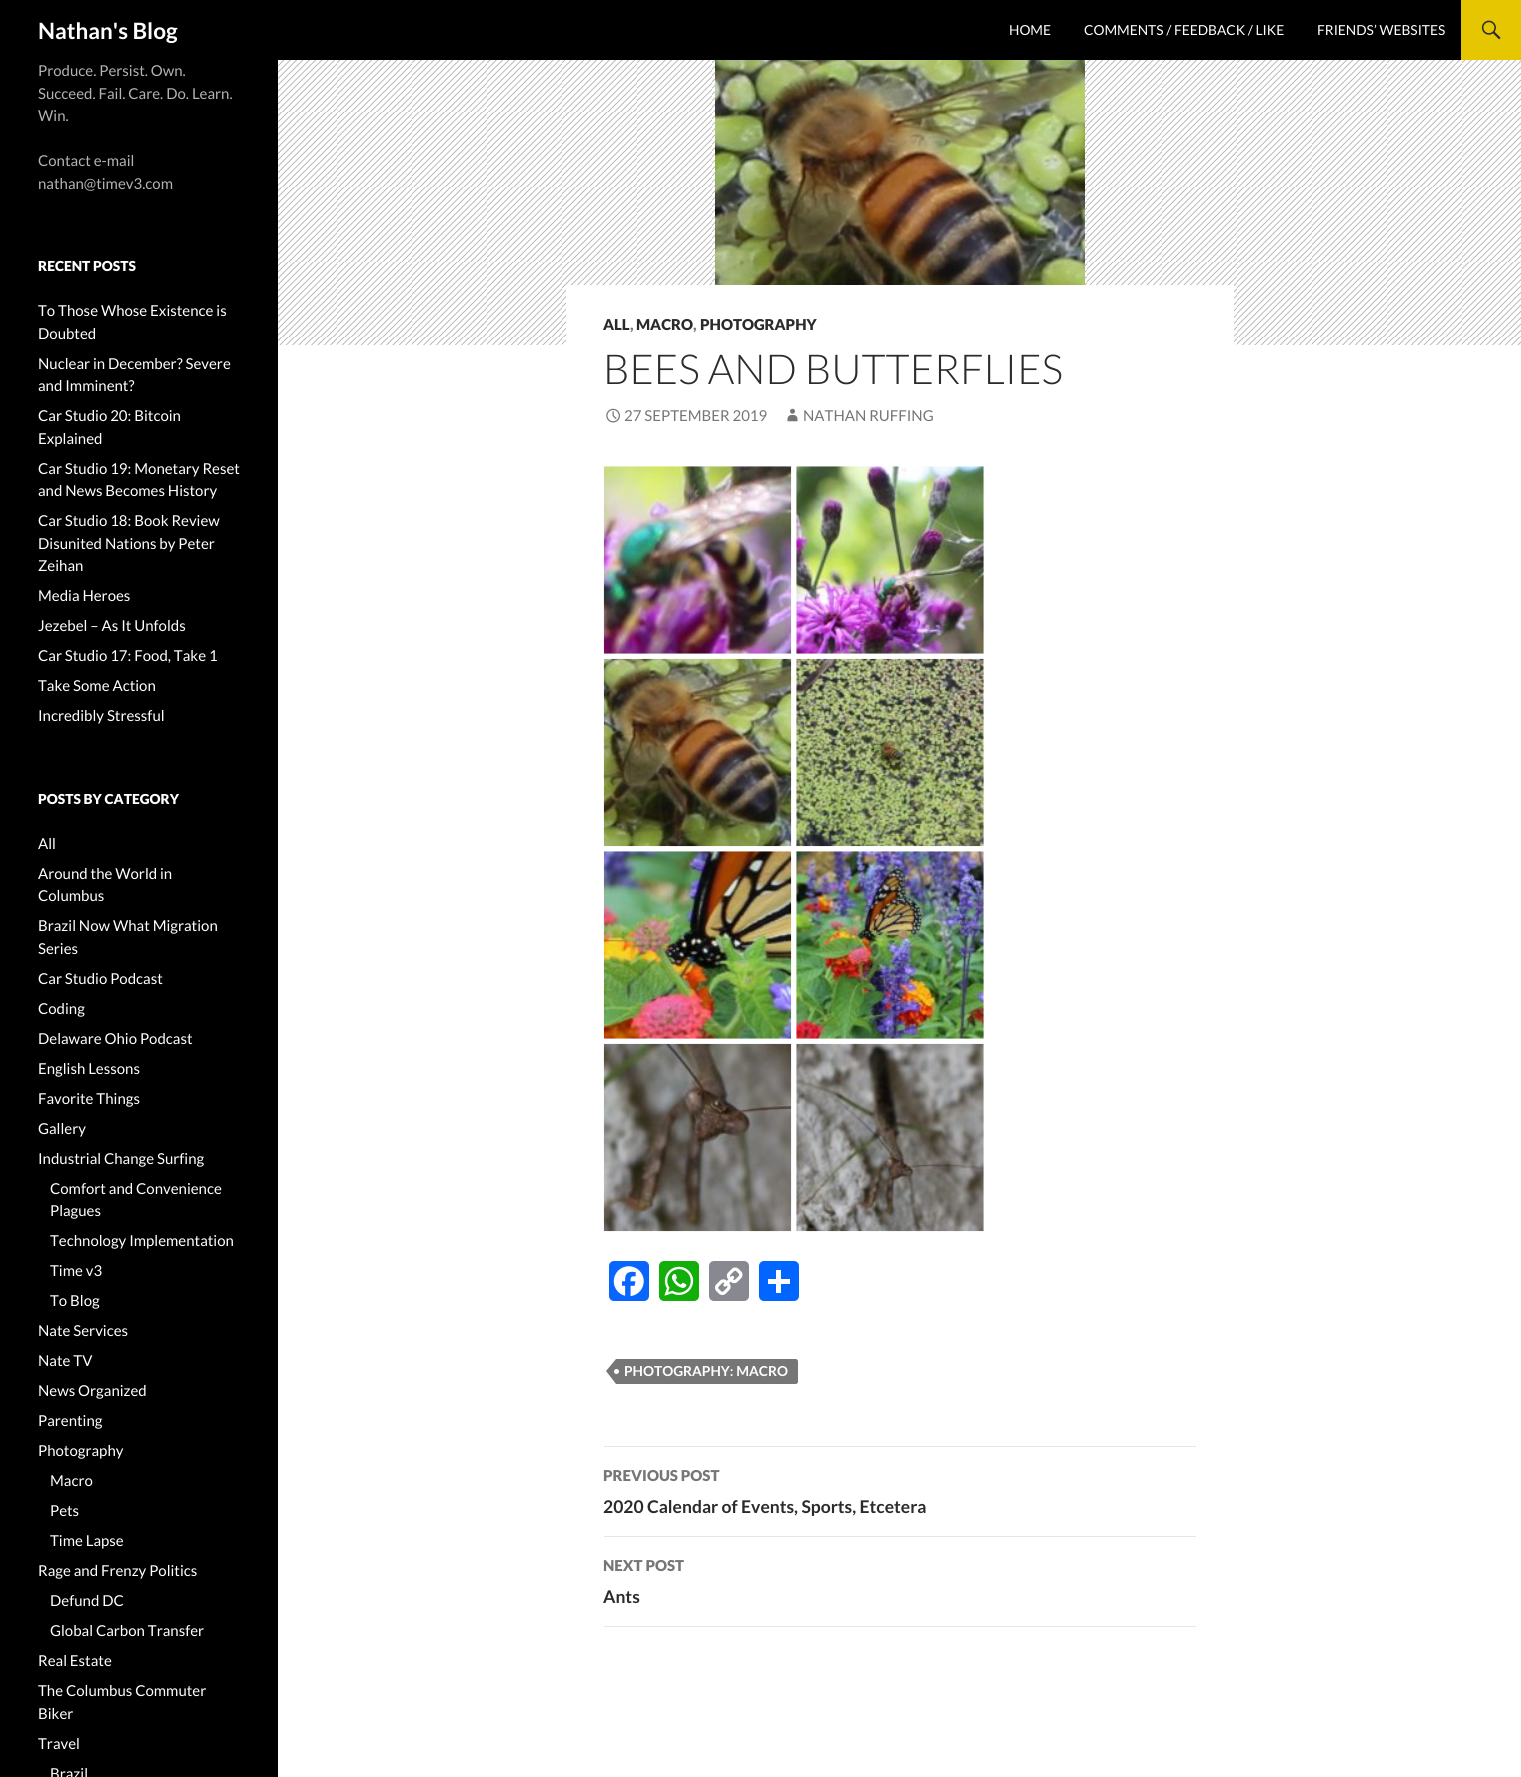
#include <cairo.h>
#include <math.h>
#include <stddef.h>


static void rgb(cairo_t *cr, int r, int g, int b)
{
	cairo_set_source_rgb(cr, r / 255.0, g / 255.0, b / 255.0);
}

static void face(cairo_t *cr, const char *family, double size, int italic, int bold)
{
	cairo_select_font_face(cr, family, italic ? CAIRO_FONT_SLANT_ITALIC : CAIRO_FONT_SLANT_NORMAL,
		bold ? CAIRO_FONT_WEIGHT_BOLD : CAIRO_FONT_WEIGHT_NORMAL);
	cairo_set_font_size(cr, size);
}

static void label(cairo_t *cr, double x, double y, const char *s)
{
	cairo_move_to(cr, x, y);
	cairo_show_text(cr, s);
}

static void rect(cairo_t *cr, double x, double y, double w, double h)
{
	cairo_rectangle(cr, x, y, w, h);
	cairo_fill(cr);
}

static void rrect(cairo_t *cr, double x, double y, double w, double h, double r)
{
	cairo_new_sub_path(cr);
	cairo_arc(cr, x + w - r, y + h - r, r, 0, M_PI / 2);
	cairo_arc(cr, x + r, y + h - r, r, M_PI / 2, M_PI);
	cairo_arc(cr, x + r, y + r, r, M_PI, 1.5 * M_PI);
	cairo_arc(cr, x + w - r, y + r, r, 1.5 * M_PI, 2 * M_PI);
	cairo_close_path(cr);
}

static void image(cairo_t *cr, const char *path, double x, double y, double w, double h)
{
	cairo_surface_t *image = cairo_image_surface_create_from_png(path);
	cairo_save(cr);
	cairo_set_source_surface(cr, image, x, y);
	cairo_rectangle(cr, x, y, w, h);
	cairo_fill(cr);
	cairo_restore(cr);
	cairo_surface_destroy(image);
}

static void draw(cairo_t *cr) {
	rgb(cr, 0, 0, 0);
	cairo_paint(cr);
	rgb(cr, 255, 255, 255);
	rect(cr, 278, 345, 1243, 1432);
	face(cr, "Lato", 22.5, 0, 1);
	label(cr, 38, 39, "Nathan's Blog");
	face(cr, "Lato", 13.75, 0, 0);
	label(cr, 1009, 35, "HOME");
	label(cr, 1084, 35, "COMMENTS / FEEDBACK / LIKE");
	label(cr, 1317, 35, "FRIENDS’ WEBSITES");
	rgb(cr, 229, 198, 0);
	rect(cr, 1461, 0, 60, 60);
	image(cr, "image0.png", 1481, 20, 20, 20);
	face(cr, "Lato", 15, 0, 0);
	rgb(cr, 179, 179, 179);
	label(cr, 38, 76, "Produce. Persist. Own.");
	label(cr, 38, 99, "Succeed. Fail. Care. Do. Learn.");
	label(cr, 38, 121, "Win.");
	label(cr, 38, 166, "Contact e-mail");
	label(cr, 38, 189, "nathan@timev3.com");
	face(cr, "Lato Black", 13.75, 0, 0);
	rgb(cr, 255, 255, 255);
	label(cr, 38, 271, "RECENT POSTS");
	face(cr, "Lato", 15, 0, 0);
	label(cr, 38, 316, "To Those Whose Existence is");
	label(cr, 38, 339, "Doubted");
	label(cr, 38, 369, "Nuclear in December? Severe");
	label(cr, 38, 391, "and Imminent?");
	label(cr, 38, 421, "Car Studio 20: Bitcoin");
	label(cr, 38, 444, "Explained");
	label(cr, 38, 474, "Car Studio 19: Monetary Reset");
	label(cr, 38, 496, "and News Becomes History");
	label(cr, 38, 526, "Car Studio 18: Book Review");
	label(cr, 38, 549, "Disunited Nations by Peter");
	label(cr, 38, 571, "Zeihan");
	label(cr, 38, 601, "Media Heroes");
	label(cr, 38, 631, "Jezebel – As It Unfolds");
	label(cr, 38, 661, "Car Studio 17: Food, Take 1");
	label(cr, 38, 691, "Take Some Action");
	label(cr, 38, 721, "Incredibly Stressful");
	face(cr, "Lato Black", 13.75, 0, 0);
	label(cr, 38, 804, "POSTS BY CATEGORY");
	face(cr, "Lato", 15, 0, 0);
	label(cr, 38, 849, "All");
	label(cr, 38, 879, "Around the World in");
	label(cr, 38, 901, "Columbus");
	label(cr, 38, 931, "Brazil Now What Migration");
	label(cr, 38, 954, "Series");
	label(cr, 38, 984, "Car Studio Podcast");
	label(cr, 38, 1014, "Coding");
	label(cr, 38, 1044, "Delaware Ohio Podcast");
	label(cr, 38, 1074, "English Lessons");
	label(cr, 38, 1104, "Favorite Things");
	label(cr, 38, 1134, "Gallery");
	label(cr, 38, 1164, "Industrial Change Surfing");
	label(cr, 50, 1194, "Comfort and Convenience");
	label(cr, 50, 1216, "Plagues");
	label(cr, 50, 1246, "Technology Implementation");
	label(cr, 50, 1276, "Time v3");
	label(cr, 50, 1306, "To Blog");
	label(cr, 38, 1336, "Nate Services");
	label(cr, 38, 1366, "Nate TV");
	label(cr, 38, 1396, "News Organized");
	label(cr, 38, 1426, "Parenting");
	label(cr, 38, 1456, "Photography");
	label(cr, 50, 1486, "Macro");
	label(cr, 50, 1516, "Pets");
	label(cr, 50, 1546, "Time Lapse");
	label(cr, 38, 1576, "Rage and Frenzy Politics");
	label(cr, 50, 1606, "Defund DC");
	label(cr, 50, 1636, "Global Carbon Transfer");
	label(cr, 38, 1666, "Real Estate");
	label(cr, 38, 1696, "The Columbus Commuter");
	label(cr, 38, 1719, "Biker");
	label(cr, 38, 1749, "Travel");
	label(cr, 50, 1779, "Brazil");
	rgb(cr, 178, 178, 178);
	rect(cr, 278, 60, 1243, 285);
	image(cr, "image1.png", 278, 60, 1243, 285);
	image(cr, "image2.png", 715, 60, 370, 225);
	rgb(cr, 255, 255, 255);
	rect(cr, 566, 285, 668, 60);
	face(cr, "Lato Black", 15, 0, 0);
	rgb(cr, 43, 43, 43);
	label(cr, 603, 330, "ALL");
	rgb(cr, 118, 118, 118);
	label(cr, 630, 330, ",");
	rgb(cr, 43, 43, 43);
	label(cr, 636, 330, "MACRO");
	rgb(cr, 118, 118, 118);
	label(cr, 693, 330, ",");
	rgb(cr, 43, 43, 43);
	label(cr, 700, 330, "PHOTOGRAPHY");
	face(cr, "Lato Light", 41.25, 0, 0);
	label(cr, 603, 384, "BEES AND BUTTERFLIES");
	image(cr, "image3.png", 606, 408, 14, 15);
	face(cr, "Lato", 15, 0, 0);
	rgb(cr, 118, 118, 118);
	label(cr, 624, 421, "27 SEPTEMBER 2019");
	image(cr, "image4.png", 787, 408, 11, 14);
	label(cr, 803, 421, "NATHAN RUFFING");
	image(cr, "image5.png", 603, 466, 189, 188);
	image(cr, "image6.png", 796, 466, 188, 188);
	image(cr, "image7.png", 603, 658, 189, 189);
	image(cr, "image8.png", 796, 658, 188, 189);
	image(cr, "image9.png", 603, 851, 189, 188);
	image(cr, "image10.png", 796, 851, 188, 188);
	image(cr, "image11.png", 603, 1043, 189, 189);
	image(cr, "image12.png", 796, 1043, 188, 189);
	rgb(cr, 8, 102, 255);
	rrect(cr, 609, 1261, 40, 40, 5);
	cairo_fill(cr);
	image(cr, "image13.png", 613, 1266, 31, 31);
	rgb(cr, 18, 175, 10);
	rrect(cr, 659, 1261, 40, 40, 5);
	cairo_fill(cr);
	image(cr, "image14.png", 664, 1266, 30, 30);
	rgb(cr, 136, 137, 144);
	rrect(cr, 709, 1261, 40, 40, 5);
	cairo_fill(cr);
	image(cr, "image15.png", 715, 1267, 28, 28);
	rgb(cr, 1, 102, 255);
	rrect(cr, 759, 1261, 40, 40, 5);
	cairo_fill(cr);
	rgb(cr, 255, 255, 255);
	rect(cr, 776, 1270, 5, 23);
	rect(cr, 768, 1279, 22, 5);
	rgb(cr, 118, 118, 118);
	cairo_new_path(cr);
	cairo_move_to(cr, 616, 1359);
	cairo_line_to(cr, 795.5, 1359);
	cairo_curve_to(cr, 797, 1359, 798, 1360, 798, 1361.5);
	cairo_line_to(cr, 798, 1381.5);
	cairo_curve_to(cr, 798, 1383, 797, 1384, 795.5, 1384);
	cairo_line_to(cr, 616, 1384);
	cairo_close_path(cr);
	cairo_fill(cr);
	cairo_new_path(cr);
	cairo_move_to(cr, 616, 1359);
	cairo_line_to(cr, 616, 1384);
	cairo_line_to(cr, 606, 1371);
	cairo_close_path(cr);
	cairo_fill(cr);
	rgb(cr, 255, 255, 255);
	cairo_arc(cr, 616.5, 1371.5, 2.5, 0, 2 * M_PI);
	cairo_fill(cr);
	face(cr, "Lato", 13.75, 0, 1);
	label(cr, 624, 1376, "PHOTOGRAPHY: MACRO");
	rgb(cr, 230, 230, 230);
	rect(cr, 604, 1446, 592, 1);
	rect(cr, 604, 1536, 592, 1);
	face(cr, "Lato Black", 15, 0, 0);
	rgb(cr, 118, 118, 118);
	label(cr, 603, 1481, "PREVIOUS POST");
	face(cr, "Lato", 17.5, 0, 1);
	rgb(cr, 43, 43, 43);
	label(cr, 603, 1513, "2020 Calendar of Events, Sports, Etcetera");
	rgb(cr, 230, 230, 230);
	rect(cr, 604, 1626, 592, 1);
	face(cr, "Lato Black", 15, 0, 0);
	rgb(cr, 118, 118, 118);
	label(cr, 603, 1571, "NEXT POST");
	face(cr, "Lato", 17.5, 0, 1);
	rgb(cr, 43, 43, 43);
	label(cr, 603, 1603, "Ants");
}

int main(void) {
	cairo_surface_t *surface = cairo_image_surface_create(CAIRO_FORMAT_RGB24, 1521, 1777);
	cairo_t *cr = cairo_create(surface);
	cairo_font_options_t *options = cairo_font_options_create();
	cairo_font_options_set_hint_metrics(options, CAIRO_HINT_METRICS_OFF);
	cairo_font_options_set_hint_style(options, CAIRO_HINT_STYLE_NONE);
	cairo_set_font_options(cr, options);
	cairo_set_miter_limit(cr, 4);
	draw(cr);
	cairo_surface_write_to_png(surface, "render.png");
	cairo_font_options_destroy(options);
	cairo_destroy(cr);
	cairo_surface_destroy(surface);
	return 0;
}
